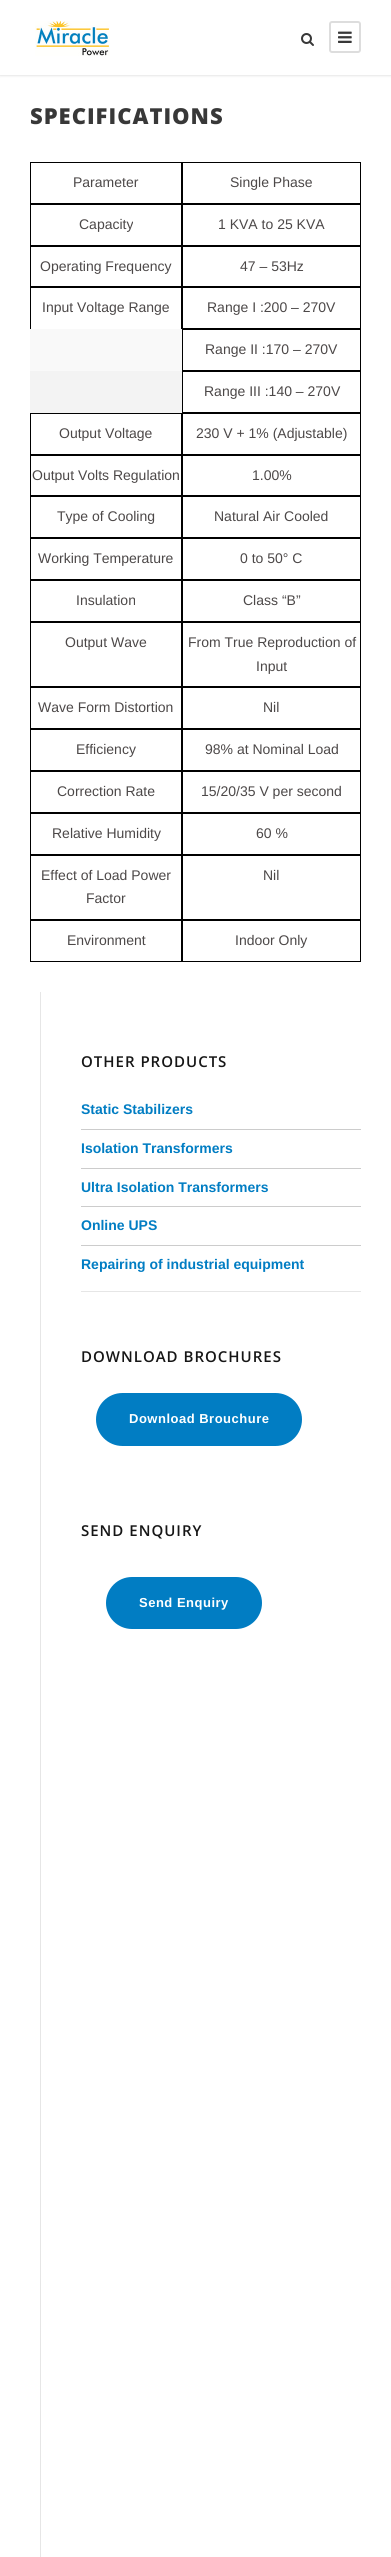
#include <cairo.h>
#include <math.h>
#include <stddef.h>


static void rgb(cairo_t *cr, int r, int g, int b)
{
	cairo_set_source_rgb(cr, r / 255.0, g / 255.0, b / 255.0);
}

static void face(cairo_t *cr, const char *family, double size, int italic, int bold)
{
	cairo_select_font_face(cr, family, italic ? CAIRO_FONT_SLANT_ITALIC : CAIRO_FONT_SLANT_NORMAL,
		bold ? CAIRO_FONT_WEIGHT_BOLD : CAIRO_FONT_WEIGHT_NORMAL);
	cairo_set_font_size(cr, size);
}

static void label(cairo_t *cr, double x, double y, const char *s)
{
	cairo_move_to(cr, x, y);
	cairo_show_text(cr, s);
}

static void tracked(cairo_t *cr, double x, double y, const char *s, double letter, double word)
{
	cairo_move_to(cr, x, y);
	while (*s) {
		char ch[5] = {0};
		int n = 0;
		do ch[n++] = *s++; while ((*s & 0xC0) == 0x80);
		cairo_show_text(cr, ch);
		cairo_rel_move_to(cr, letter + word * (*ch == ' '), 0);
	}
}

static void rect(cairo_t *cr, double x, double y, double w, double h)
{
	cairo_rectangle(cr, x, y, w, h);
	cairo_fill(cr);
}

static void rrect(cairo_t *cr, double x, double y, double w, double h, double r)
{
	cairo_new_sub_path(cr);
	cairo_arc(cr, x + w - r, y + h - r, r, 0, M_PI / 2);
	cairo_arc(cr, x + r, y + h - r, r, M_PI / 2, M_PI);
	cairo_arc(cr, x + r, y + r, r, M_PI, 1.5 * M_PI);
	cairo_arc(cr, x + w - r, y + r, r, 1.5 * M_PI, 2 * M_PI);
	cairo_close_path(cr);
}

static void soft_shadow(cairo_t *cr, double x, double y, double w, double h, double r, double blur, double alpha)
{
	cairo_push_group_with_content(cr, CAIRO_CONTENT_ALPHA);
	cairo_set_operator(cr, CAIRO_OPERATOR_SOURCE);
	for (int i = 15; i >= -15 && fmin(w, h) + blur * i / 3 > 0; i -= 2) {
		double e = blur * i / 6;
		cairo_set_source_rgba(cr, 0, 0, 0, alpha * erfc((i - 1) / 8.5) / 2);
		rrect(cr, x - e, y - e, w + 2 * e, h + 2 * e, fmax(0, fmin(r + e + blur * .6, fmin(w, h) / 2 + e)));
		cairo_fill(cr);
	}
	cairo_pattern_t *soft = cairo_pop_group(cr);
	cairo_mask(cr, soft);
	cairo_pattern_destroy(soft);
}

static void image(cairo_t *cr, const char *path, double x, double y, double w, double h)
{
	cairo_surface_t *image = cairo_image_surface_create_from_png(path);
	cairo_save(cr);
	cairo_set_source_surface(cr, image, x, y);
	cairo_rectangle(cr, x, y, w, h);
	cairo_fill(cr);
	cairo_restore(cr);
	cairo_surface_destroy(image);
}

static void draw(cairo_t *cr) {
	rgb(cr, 255, 255, 255);
	cairo_paint(cr);
	rgb(cr, 0, 0, 0);
	soft_shadow(cr, 0, 1, 391, 75, 0, 1, 0.1);
	rgb(cr, 255, 255, 255);
	rect(cr, 0, 0, 391, 75);
	image(cr, "image0.png", 35, 21, 75, 35);
	image(cr, "image1.png", 301, 33, 13, 13);
	rrect(cr, 330, 22, 30, 30, 2);
	rgb(cr, 221, 221, 221);
	cairo_stroke(cr);
	image(cr, "image2.png", 338, 31, 14, 12);
	face(cr, "Open Sans ExtraBold", 22, 0, 0);
	rgb(cr, 56, 56, 56);
	tracked(cr, 30, 124, "SPECIFICATIONS", 1, 0);
	cairo_rectangle(cr, 30.5, 162.5, 151, 41);
	rgb(cr, 0, 0, 0);
	cairo_set_line_width(cr, 1);
	cairo_stroke(cr);
	face(cr, "Liberation Sans", 14, 0, 0);
	rgb(cr, 76, 72, 72);
	label(cr, 73, 187, "Parameter");
	cairo_rectangle(cr, 182.5, 162.5, 178, 41);
	rgb(cr, 0, 0, 0);
	cairo_stroke(cr);
	rgb(cr, 76, 72, 72);
	label(cr, 230, 187, "Single Phase");
	cairo_rectangle(cr, 30.5, 204.5, 151, 41);
	rgb(cr, 0, 0, 0);
	cairo_stroke(cr);
	rgb(cr, 76, 72, 72);
	label(cr, 79, 229, "Capacity");
	cairo_rectangle(cr, 182.5, 204.5, 178, 41);
	rgb(cr, 0, 0, 0);
	cairo_stroke(cr);
	rgb(cr, 76, 72, 72);
	label(cr, 218, 229, "1 KVA to 25 KVA");
	cairo_rectangle(cr, 30.5, 246.5, 151, 40);
	rgb(cr, 0, 0, 0);
	cairo_stroke(cr);
	rgb(cr, 76, 72, 72);
	label(cr, 40, 271, "Operating Frequency");
	cairo_rectangle(cr, 182.5, 246.5, 178, 40);
	rgb(cr, 0, 0, 0);
	cairo_stroke(cr);
	rgb(cr, 76, 72, 72);
	label(cr, 240, 271, "47 – 53Hz");
	cairo_rectangle(cr, 30.5, 287.5, 151, 125);
	rgb(cr, 0, 0, 0);
	cairo_stroke(cr);
	rgb(cr, 76, 72, 72);
	label(cr, 42, 312, "Input Voltage Range");
	cairo_rectangle(cr, 182.5, 287.5, 178, 41);
	rgb(cr, 0, 0, 0);
	cairo_stroke(cr);
	rgb(cr, 76, 72, 72);
	label(cr, 207, 312, "Range I :200 – 270V");
	rgb(cr, 249, 249, 249);
	rect(cr, 30, 329, 152, 42);
	cairo_rectangle(cr, 182.5, 329.5, 178, 41);
	rgb(cr, 0, 0, 0);
	cairo_stroke(cr);
	rgb(cr, 76, 72, 72);
	label(cr, 205, 354, "Range II :170 – 270V");
	rgb(cr, 243, 243, 243);
	rect(cr, 30, 371, 152, 42);
	cairo_rectangle(cr, 182.5, 371.5, 178, 41);
	rgb(cr, 0, 0, 0);
	cairo_stroke(cr);
	rgb(cr, 76, 72, 72);
	label(cr, 204, 396, "Range III :140 – 270V");
	cairo_rectangle(cr, 30.5, 413.5, 151, 41);
	rgb(cr, 0, 0, 0);
	cairo_stroke(cr);
	rgb(cr, 76, 72, 72);
	label(cr, 59, 438, "Output Voltage");
	cairo_rectangle(cr, 182.5, 413.5, 178, 41);
	rgb(cr, 0, 0, 0);
	cairo_stroke(cr);
	rgb(cr, 76, 72, 72);
	label(cr, 196, 438, "230 V + 1% (Adjustable)");
	cairo_rectangle(cr, 30.5, 455.5, 151, 40);
	rgb(cr, 0, 0, 0);
	cairo_stroke(cr);
	rgb(cr, 76, 72, 72);
	label(cr, 32, 480, "Output Volts Regulation");
	cairo_rectangle(cr, 182.5, 455.5, 178, 40);
	rgb(cr, 0, 0, 0);
	cairo_stroke(cr);
	rgb(cr, 76, 72, 72);
	label(cr, 252, 480, "1.00%");
	cairo_rectangle(cr, 30.5, 496.5, 151, 41);
	rgb(cr, 0, 0, 0);
	cairo_stroke(cr);
	rgb(cr, 76, 72, 72);
	label(cr, 57, 521, "Type of Cooling");
	cairo_rectangle(cr, 182.5, 496.5, 178, 41);
	rgb(cr, 0, 0, 0);
	cairo_stroke(cr);
	rgb(cr, 76, 72, 72);
	label(cr, 214, 521, "Natural Air Cooled");
	cairo_rectangle(cr, 30.5, 538.5, 151, 41);
	rgb(cr, 0, 0, 0);
	cairo_stroke(cr);
	rgb(cr, 76, 72, 72);
	label(cr, 38, 563, "Working Temperature");
	cairo_rectangle(cr, 182.5, 538.5, 178, 41);
	rgb(cr, 0, 0, 0);
	cairo_stroke(cr);
	rgb(cr, 76, 72, 72);
	label(cr, 240, 563, "0 to 50° C");
	cairo_rectangle(cr, 30.5, 580.5, 151, 41);
	rgb(cr, 0, 0, 0);
	cairo_stroke(cr);
	rgb(cr, 76, 72, 72);
	label(cr, 76, 605, "Insulation");
	cairo_rectangle(cr, 182.5, 580.5, 178, 41);
	rgb(cr, 0, 0, 0);
	cairo_stroke(cr);
	rgb(cr, 76, 72, 72);
	label(cr, 243, 605, "Class “B”");
	cairo_rectangle(cr, 30.5, 622.5, 151, 64);
	rgb(cr, 0, 0, 0);
	cairo_stroke(cr);
	rgb(cr, 76, 72, 72);
	label(cr, 65, 647, "Output Wave");
	cairo_rectangle(cr, 182.5, 622.5, 178, 64);
	rgb(cr, 0, 0, 0);
	cairo_stroke(cr);
	rgb(cr, 76, 72, 72);
	label(cr, 188, 647, "From True Reproduction of");
	label(cr, 256, 671, "Input");
	cairo_rectangle(cr, 30.5, 687.5, 151, 41);
	rgb(cr, 0, 0, 0);
	cairo_stroke(cr);
	rgb(cr, 76, 72, 72);
	label(cr, 38, 712, "Wave Form Distortion");
	cairo_rectangle(cr, 182.5, 687.5, 178, 41);
	rgb(cr, 0, 0, 0);
	cairo_stroke(cr);
	rgb(cr, 76, 72, 72);
	label(cr, 263, 712, "Nil");
	cairo_rectangle(cr, 30.5, 729.5, 151, 41);
	rgb(cr, 0, 0, 0);
	cairo_stroke(cr);
	rgb(cr, 76, 72, 72);
	label(cr, 76, 754, "Efficiency");
	cairo_rectangle(cr, 182.5, 729.5, 178, 41);
	rgb(cr, 0, 0, 0);
	cairo_stroke(cr);
	rgb(cr, 76, 72, 72);
	label(cr, 205, 754, "98% at Nominal Load");
	cairo_rectangle(cr, 30.5, 771.5, 151, 41);
	rgb(cr, 0, 0, 0);
	cairo_stroke(cr);
	rgb(cr, 76, 72, 72);
	label(cr, 57, 796, "Correction Rate");
	cairo_rectangle(cr, 182.5, 771.5, 178, 41);
	rgb(cr, 0, 0, 0);
	cairo_stroke(cr);
	rgb(cr, 76, 72, 72);
	label(cr, 201, 796, "15/20/35 V per second");
	cairo_rectangle(cr, 30.5, 813.5, 151, 41);
	rgb(cr, 0, 0, 0);
	cairo_stroke(cr);
	rgb(cr, 76, 72, 72);
	label(cr, 52, 838, "Relative Humidity");
	cairo_rectangle(cr, 182.5, 813.5, 178, 41);
	rgb(cr, 0, 0, 0);
	cairo_stroke(cr);
	rgb(cr, 76, 72, 72);
	label(cr, 256, 838, "60 %");
	cairo_rectangle(cr, 30.5, 855.5, 151, 64);
	rgb(cr, 0, 0, 0);
	cairo_stroke(cr);
	rgb(cr, 76, 72, 72);
	label(cr, 41, 880, "Effect of Load Power");
	label(cr, 86, 903, "Factor");
	cairo_rectangle(cr, 182.5, 855.5, 178, 64);
	rgb(cr, 0, 0, 0);
	cairo_stroke(cr);
	rgb(cr, 76, 72, 72);
	label(cr, 263, 880, "Nil");
	cairo_rectangle(cr, 30.5, 920.5, 151, 41);
	rgb(cr, 0, 0, 0);
	cairo_stroke(cr);
	rgb(cr, 76, 72, 72);
	label(cr, 67, 945, "Environment");
	cairo_rectangle(cr, 182.5, 920.5, 178, 41);
	rgb(cr, 0, 0, 0);
	cairo_stroke(cr);
	rgb(cr, 76, 72, 72);
	label(cr, 235, 945, "Indoor Only");
	rgb(cr, 230, 230, 230);
	rect(cr, 40, 992, 1, 1565);
	face(cr, "Open Sans SemiBold", 15, 0, 0);
	rgb(cr, 22, 22, 22);
	tracked(cr, 81, 1067, "OTHER PRODUCTS", 1, 0);
	face(cr, "Liberation Sans", 14, 0, 1);
	rgb(cr, 1, 125, 195);
	label(cr, 81, 1114, "Static Stabilizers");
	rgb(cr, 204, 204, 204);
	rect(cr, 81, 1129, 280, 1);
	rgb(cr, 1, 125, 195);
	label(cr, 81, 1153, "Isolation Transformers");
	rgb(cr, 204, 204, 204);
	rect(cr, 81, 1168, 280, 1);
	rgb(cr, 1, 125, 195);
	label(cr, 81, 1192, "Ultra Isolation Transformers");
	rgb(cr, 204, 204, 204);
	rect(cr, 81, 1206, 280, 1);
	rgb(cr, 1, 125, 195);
	label(cr, 81, 1230, "Online UPS");
	rgb(cr, 204, 204, 204);
	rect(cr, 81, 1245, 280, 1);
	rgb(cr, 1, 125, 195);
	label(cr, 81, 1269, "Repairing of industrial equipment");
	rgb(cr, 230, 230, 230);
	rect(cr, 81, 1291, 280, 1);
	face(cr, "Open Sans SemiBold", 15, 0, 0);
	rgb(cr, 22, 22, 22);
	tracked(cr, 81, 1362, "DOWNLOAD BROCHURES", 1, 0);
	rgb(cr, 1, 125, 195);
	rrect(cr, 96, 1393, 206, 53, 26.5);
	cairo_fill(cr);
	face(cr, "Liberation Sans", 13, 0, 1);
	rgb(cr, 255, 255, 255);
	tracked(cr, 129, 1423, "Download Brouchure", 0.5, 0);
	face(cr, "Open Sans SemiBold", 15, 0, 0);
	rgb(cr, 22, 22, 22);
	tracked(cr, 81, 1536, "SEND ENQUIRY", 1, 0);
	rgb(cr, 1, 125, 195);
	rrect(cr, 106, 1577, 156, 52, 26);
	cairo_fill(cr);
	face(cr, "Liberation Sans", 13, 0, 1);
	rgb(cr, 255, 255, 255);
	tracked(cr, 139, 1607, "Send Enquiry", 0.5, 0);
}

int main(void) {
	cairo_surface_t *surface = cairo_image_surface_create(CAIRO_FORMAT_RGB24, 391, 2557);
	cairo_t *cr = cairo_create(surface);
	cairo_font_options_t *options = cairo_font_options_create();
	cairo_font_options_set_hint_metrics(options, CAIRO_HINT_METRICS_OFF);
	cairo_font_options_set_hint_style(options, CAIRO_HINT_STYLE_NONE);
	cairo_set_font_options(cr, options);
	cairo_set_miter_limit(cr, 4);
	draw(cr);
	cairo_surface_write_to_png(surface, "render.png");
	cairo_font_options_destroy(options);
	cairo_destroy(cr);
	cairo_surface_destroy(surface);
	return 0;
}
